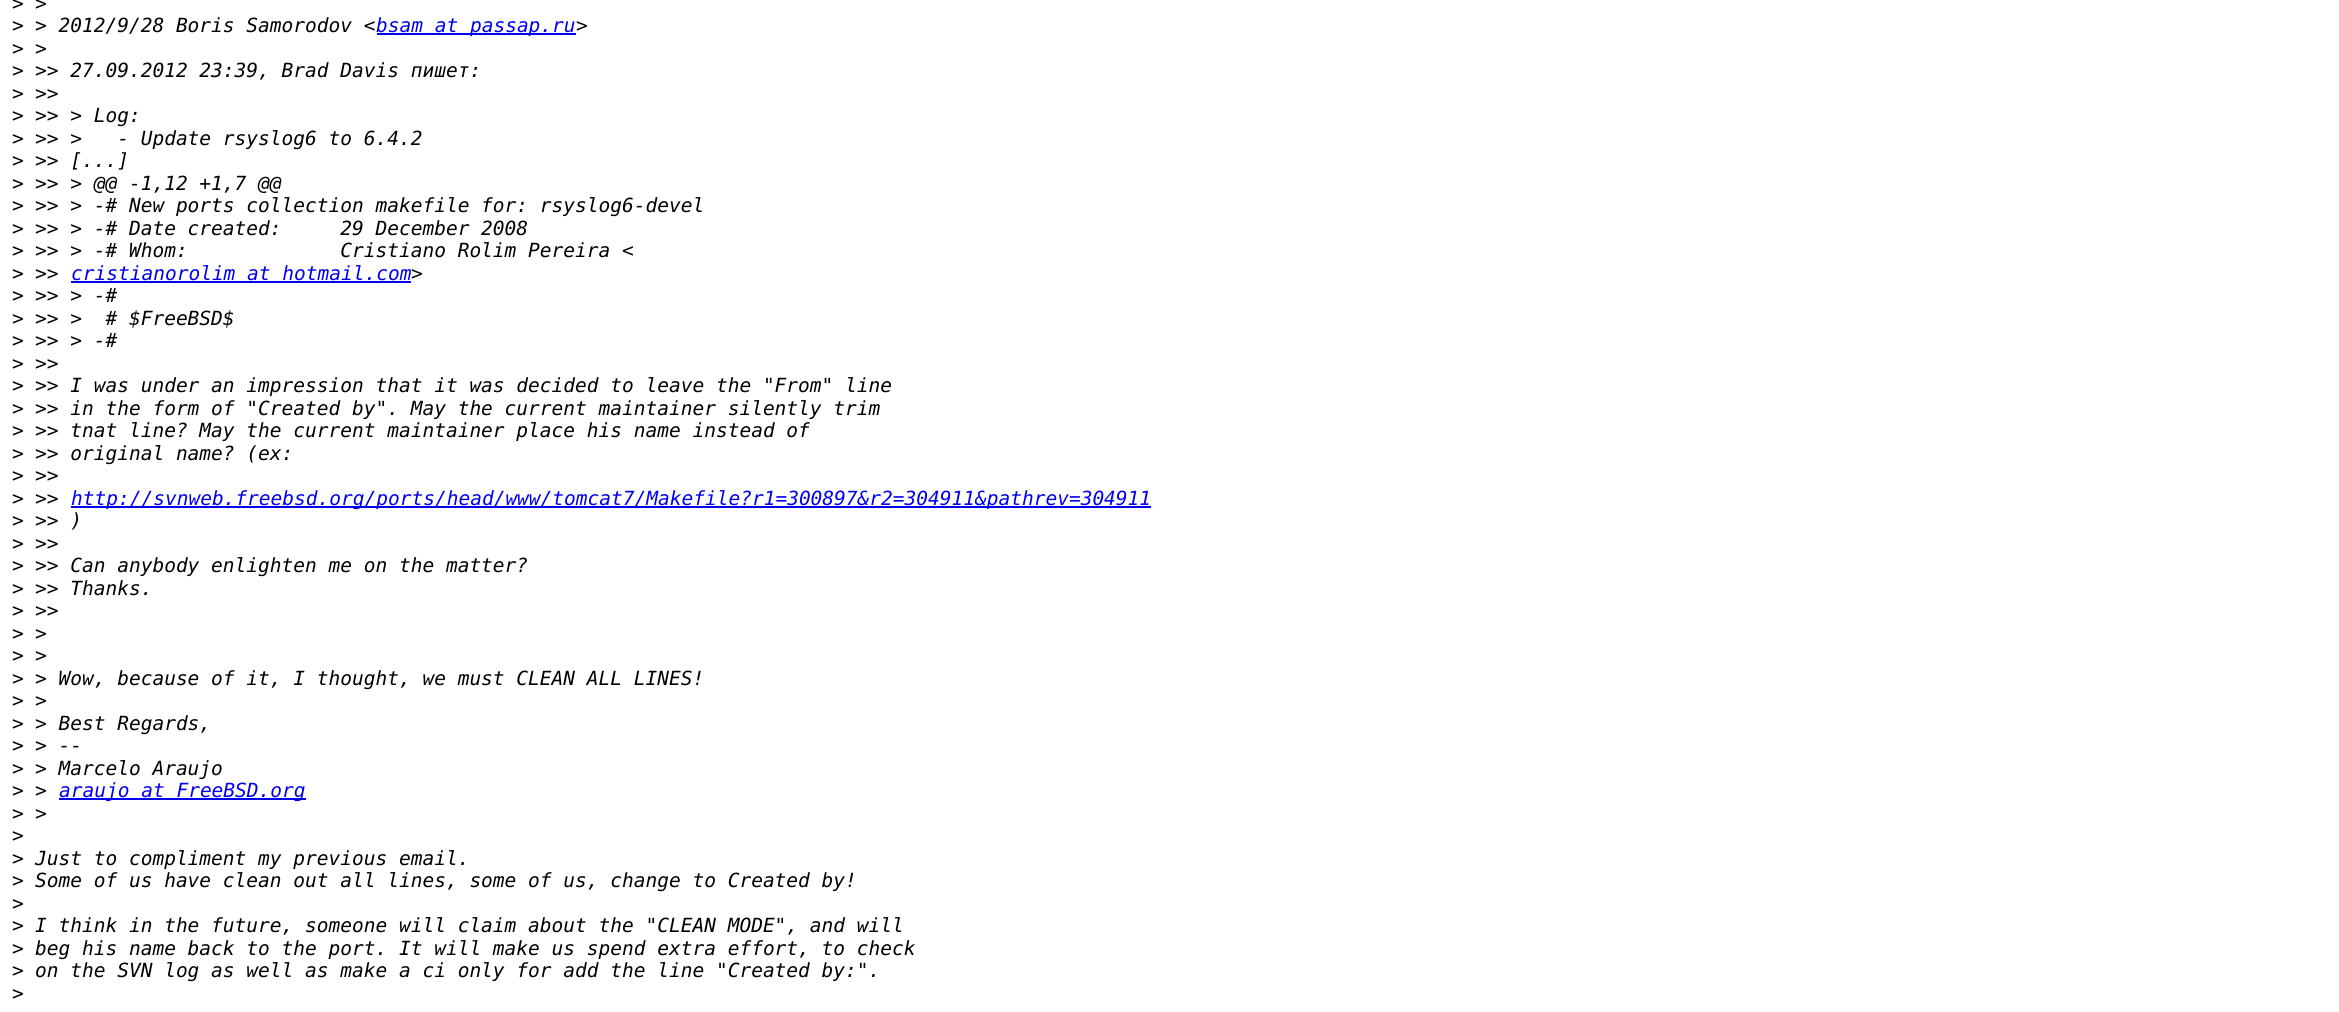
#include <cairo.h>
#include <math.h>
#include <stddef.h>


static void rgb(cairo_t *cr, int r, int g, int b)
{
	cairo_set_source_rgb(cr, r / 255.0, g / 255.0, b / 255.0);
}

static void face(cairo_t *cr, const char *family, double size, int italic, int bold)
{
	cairo_select_font_face(cr, family, italic ? CAIRO_FONT_SLANT_ITALIC : CAIRO_FONT_SLANT_NORMAL,
		bold ? CAIRO_FONT_WEIGHT_BOLD : CAIRO_FONT_WEIGHT_NORMAL);
	cairo_set_font_size(cr, size);
}

static void label(cairo_t *cr, double x, double y, const char *s)
{
	cairo_move_to(cr, x, y);
	cairo_show_text(cr, s);
}

static void rect(cairo_t *cr, double x, double y, double w, double h)
{
	cairo_rectangle(cr, x, y, w, h);
	cairo_fill(cr);
}

static void draw(cairo_t *cr) {
	rgb(cr, 255, 255, 255);
	cairo_paint(cr);
	face(cr, "DejaVu Sans Mono", 19.5, 0, 0);
	rgb(cr, 0, 0, 0);
	label(cr, 12, 10, ">");
	face(cr, "DejaVu Sans Mono", 19.5, 1, 0);
	label(cr, 35, 10, ">");
	face(cr, "DejaVu Sans Mono", 19.5, 0, 0);
	label(cr, 12, 32, ">");
	face(cr, "DejaVu Sans Mono", 19.5, 1, 0);
	label(cr, 35, 32, "> 2012/9/28 Boris Samorodov <");
	rgb(cr, 0, 0, 238);
	rect(cr, 377, 33, 199, 2);
	label(cr, 376, 32, "bsam at passap.ru");
	rgb(cr, 0, 0, 0);
	label(cr, 576, 32, ">");
	face(cr, "DejaVu Sans Mono", 19.5, 0, 0);
	label(cr, 12, 55, ">");
	face(cr, "DejaVu Sans Mono", 19.5, 1, 0);
	label(cr, 35, 55, ">");
	face(cr, "DejaVu Sans Mono", 19.5, 0, 0);
	label(cr, 12, 77, ">");
	face(cr, "DejaVu Sans Mono", 19.5, 1, 0);
	label(cr, 35, 77, ">> 27.09.2012 23:39, Brad Davis пишет:");
	face(cr, "DejaVu Sans Mono", 19.5, 0, 0);
	label(cr, 12, 100, ">");
	face(cr, "DejaVu Sans Mono", 19.5, 1, 0);
	label(cr, 35, 100, ">>");
	face(cr, "DejaVu Sans Mono", 19.5, 0, 0);
	label(cr, 12, 122, ">");
	face(cr, "DejaVu Sans Mono", 19.5, 1, 0);
	label(cr, 35, 122, ">> > Log:");
	face(cr, "DejaVu Sans Mono", 19.5, 0, 0);
	label(cr, 12, 145, ">");
	face(cr, "DejaVu Sans Mono", 19.5, 1, 0);
	label(cr, 35, 145, ">> >   - Update rsyslog6 to 6.4.2");
	face(cr, "DejaVu Sans Mono", 19.5, 0, 0);
	label(cr, 12, 167, ">");
	face(cr, "DejaVu Sans Mono", 19.5, 1, 0);
	label(cr, 35, 167, ">> [...]");
	face(cr, "DejaVu Sans Mono", 19.5, 0, 0);
	label(cr, 12, 190, ">");
	face(cr, "DejaVu Sans Mono", 19.5, 1, 0);
	label(cr, 35, 190, ">> > @@ -1,12 +1,7 @@");
	face(cr, "DejaVu Sans Mono", 19.5, 0, 0);
	label(cr, 12, 212, ">");
	face(cr, "DejaVu Sans Mono", 19.5, 1, 0);
	label(cr, 35, 212, ">> > -# New ports collection makefile for: rsyslog6-devel");
	face(cr, "DejaVu Sans Mono", 19.5, 0, 0);
	label(cr, 12, 235, ">");
	face(cr, "DejaVu Sans Mono", 19.5, 1, 0);
	label(cr, 35, 235, ">> > -# Date created:     29 December 2008");
	face(cr, "DejaVu Sans Mono", 19.5, 0, 0);
	label(cr, 12, 257, ">");
	face(cr, "DejaVu Sans Mono", 19.5, 1, 0);
	label(cr, 35, 257, ">> > -# Whom:             Cristiano Rolim Pereira <");
	face(cr, "DejaVu Sans Mono", 19.5, 0, 0);
	label(cr, 12, 280, ">");
	face(cr, "DejaVu Sans Mono", 19.5, 1, 0);
	label(cr, 35, 280, ">>");
	rgb(cr, 0, 0, 238);
	label(cr, 71, 280, "cristianorolim at hotmail.com");
	rgb(cr, 0, 0, 0);
	label(cr, 411, 280, ">");
	rgb(cr, 0, 0, 238);
	rect(cr, 71, 281, 340, 2);
	face(cr, "DejaVu Sans Mono", 19.5, 0, 0);
	rgb(cr, 0, 0, 0);
	label(cr, 12, 302, ">");
	face(cr, "DejaVu Sans Mono", 19.5, 1, 0);
	label(cr, 35, 302, ">> > -#");
	face(cr, "DejaVu Sans Mono", 19.5, 0, 0);
	label(cr, 12, 325, ">");
	face(cr, "DejaVu Sans Mono", 19.5, 1, 0);
	label(cr, 35, 325, ">> >  # $FreeBSD$");
	face(cr, "DejaVu Sans Mono", 19.5, 0, 0);
	label(cr, 12, 347, ">");
	face(cr, "DejaVu Sans Mono", 19.5, 1, 0);
	label(cr, 35, 347, ">> > -#");
	face(cr, "DejaVu Sans Mono", 19.5, 0, 0);
	label(cr, 12, 370, ">");
	face(cr, "DejaVu Sans Mono", 19.5, 1, 0);
	label(cr, 35, 370, ">>");
	face(cr, "DejaVu Sans Mono", 19.5, 0, 0);
	label(cr, 12, 392, ">");
	face(cr, "DejaVu Sans Mono", 19.5, 1, 0);
	label(cr, 35, 392, ">> I was under an impression that it was decided to leave the \"From\" line");
	face(cr, "DejaVu Sans Mono", 19.5, 0, 0);
	label(cr, 12, 415, ">");
	face(cr, "DejaVu Sans Mono", 19.5, 1, 0);
	label(cr, 35, 415, ">> in the form of \"Created by\". May the current maintainer silently trim");
	face(cr, "DejaVu Sans Mono", 19.5, 0, 0);
	label(cr, 12, 437, ">");
	face(cr, "DejaVu Sans Mono", 19.5, 1, 0);
	label(cr, 35, 437, ">> tnat line? May the current maintainer place his name instead of");
	face(cr, "DejaVu Sans Mono", 19.5, 0, 0);
	label(cr, 12, 460, ">");
	face(cr, "DejaVu Sans Mono", 19.5, 1, 0);
	label(cr, 35, 460, ">> original name? (ex:");
	face(cr, "DejaVu Sans Mono", 19.5, 0, 0);
	label(cr, 12, 482, ">");
	face(cr, "DejaVu Sans Mono", 19.5, 1, 0);
	label(cr, 35, 482, ">>");
	face(cr, "DejaVu Sans Mono", 19.5, 0, 0);
	label(cr, 12, 505, ">");
	face(cr, "DejaVu Sans Mono", 19.5, 1, 0);
	label(cr, 35, 505, ">>");
	rgb(cr, 0, 0, 238);
	rect(cr, 71, 506, 1080, 2);
	label(cr, 71, 505, "http://svnweb.freebsd.org/ports/head/www/tomcat7/Makefile?r1=300897&r2=304911&pathrev=304911");
	face(cr, "DejaVu Sans Mono", 19.5, 0, 0);
	rgb(cr, 0, 0, 0);
	label(cr, 12, 527, ">");
	face(cr, "DejaVu Sans Mono", 19.5, 1, 0);
	label(cr, 35, 527, ">> )");
	face(cr, "DejaVu Sans Mono", 19.5, 0, 0);
	label(cr, 12, 550, ">");
	face(cr, "DejaVu Sans Mono", 19.5, 1, 0);
	label(cr, 35, 550, ">>");
	face(cr, "DejaVu Sans Mono", 19.5, 0, 0);
	label(cr, 12, 572, ">");
	face(cr, "DejaVu Sans Mono", 19.5, 1, 0);
	label(cr, 35, 572, ">> Can anybody enlighten me on the matter?");
	face(cr, "DejaVu Sans Mono", 19.5, 0, 0);
	label(cr, 12, 595, ">");
	face(cr, "DejaVu Sans Mono", 19.5, 1, 0);
	label(cr, 35, 595, ">> Thanks.");
	face(cr, "DejaVu Sans Mono", 19.5, 0, 0);
	label(cr, 12, 617, ">");
	face(cr, "DejaVu Sans Mono", 19.5, 1, 0);
	label(cr, 35, 617, ">>");
	face(cr, "DejaVu Sans Mono", 19.5, 0, 0);
	label(cr, 12, 640, ">");
	face(cr, "DejaVu Sans Mono", 19.5, 1, 0);
	label(cr, 35, 640, ">");
	face(cr, "DejaVu Sans Mono", 19.5, 0, 0);
	label(cr, 12, 662, ">");
	face(cr, "DejaVu Sans Mono", 19.5, 1, 0);
	label(cr, 35, 662, ">");
	face(cr, "DejaVu Sans Mono", 19.5, 0, 0);
	label(cr, 12, 685, ">");
	face(cr, "DejaVu Sans Mono", 19.5, 1, 0);
	label(cr, 35, 685, "> Wow, because of it, I thought, we must CLEAN ALL LINES!");
	face(cr, "DejaVu Sans Mono", 19.5, 0, 0);
	label(cr, 12, 707, ">");
	face(cr, "DejaVu Sans Mono", 19.5, 1, 0);
	label(cr, 35, 707, ">");
	face(cr, "DejaVu Sans Mono", 19.5, 0, 0);
	label(cr, 12, 730, ">");
	face(cr, "DejaVu Sans Mono", 19.5, 1, 0);
	label(cr, 35, 730, "> Best Regards,");
	face(cr, "DejaVu Sans Mono", 19.5, 0, 0);
	label(cr, 12, 752, ">");
	face(cr, "DejaVu Sans Mono", 19.5, 1, 0);
	label(cr, 35, 752, "> --");
	face(cr, "DejaVu Sans Mono", 19.5, 0, 0);
	label(cr, 12, 775, ">");
	face(cr, "DejaVu Sans Mono", 19.5, 1, 0);
	label(cr, 35, 775, "> Marcelo Araujo");
	face(cr, "DejaVu Sans Mono", 19.5, 0, 0);
	label(cr, 12, 797, ">");
	face(cr, "DejaVu Sans Mono", 19.5, 1, 0);
	label(cr, 35, 797, ">");
	rgb(cr, 0, 0, 238);
	rect(cr, 59, 798, 247, 2);
	label(cr, 59, 797, "araujo at FreeBSD.org");
	face(cr, "DejaVu Sans Mono", 19.5, 0, 0);
	rgb(cr, 0, 0, 0);
	label(cr, 12, 820, ">");
	face(cr, "DejaVu Sans Mono", 19.5, 1, 0);
	label(cr, 35, 820, ">");
	face(cr, "DejaVu Sans Mono", 19.5, 0, 0);
	label(cr, 12, 842, ">");
	label(cr, 12, 865, ">");
	face(cr, "DejaVu Sans Mono", 19.5, 1, 0);
	label(cr, 35, 865, "Just to compliment my previous email.");
	face(cr, "DejaVu Sans Mono", 19.5, 0, 0);
	label(cr, 12, 887, ">");
	face(cr, "DejaVu Sans Mono", 19.5, 1, 0);
	label(cr, 35, 887, "Some of us have clean out all lines, some of us, change to Created by!");
	face(cr, "DejaVu Sans Mono", 19.5, 0, 0);
	label(cr, 12, 910, ">");
	label(cr, 12, 932, ">");
	face(cr, "DejaVu Sans Mono", 19.5, 1, 0);
	label(cr, 35, 932, "I think in the future, someone will claim about the \"CLEAN MODE\", and will");
	face(cr, "DejaVu Sans Mono", 19.5, 0, 0);
	label(cr, 12, 955, ">");
	face(cr, "DejaVu Sans Mono", 19.5, 1, 0);
	label(cr, 35, 955, "beg his name back to the port. It will make us spend extra effort, to check");
	face(cr, "DejaVu Sans Mono", 19.5, 0, 0);
	label(cr, 12, 977, ">");
	face(cr, "DejaVu Sans Mono", 19.5, 1, 0);
	label(cr, 35, 977, "on the SVN log as well as make a ci only for add the line \"Created by:\".");
	face(cr, "DejaVu Sans Mono", 19.5, 0, 0);
	label(cr, 12, 1000, ">");
}

int main(void) {
	cairo_surface_t *surface = cairo_image_surface_create(CAIRO_FORMAT_RGB24, 2339, 1012);
	cairo_t *cr = cairo_create(surface);
	cairo_font_options_t *options = cairo_font_options_create();
	cairo_font_options_set_hint_metrics(options, CAIRO_HINT_METRICS_OFF);
	cairo_font_options_set_hint_style(options, CAIRO_HINT_STYLE_NONE);
	cairo_set_font_options(cr, options);
	cairo_set_miter_limit(cr, 4);
	draw(cr);
	cairo_surface_write_to_png(surface, "render.png");
	cairo_font_options_destroy(options);
	cairo_destroy(cr);
	cairo_surface_destroy(surface);
	return 0;
}
